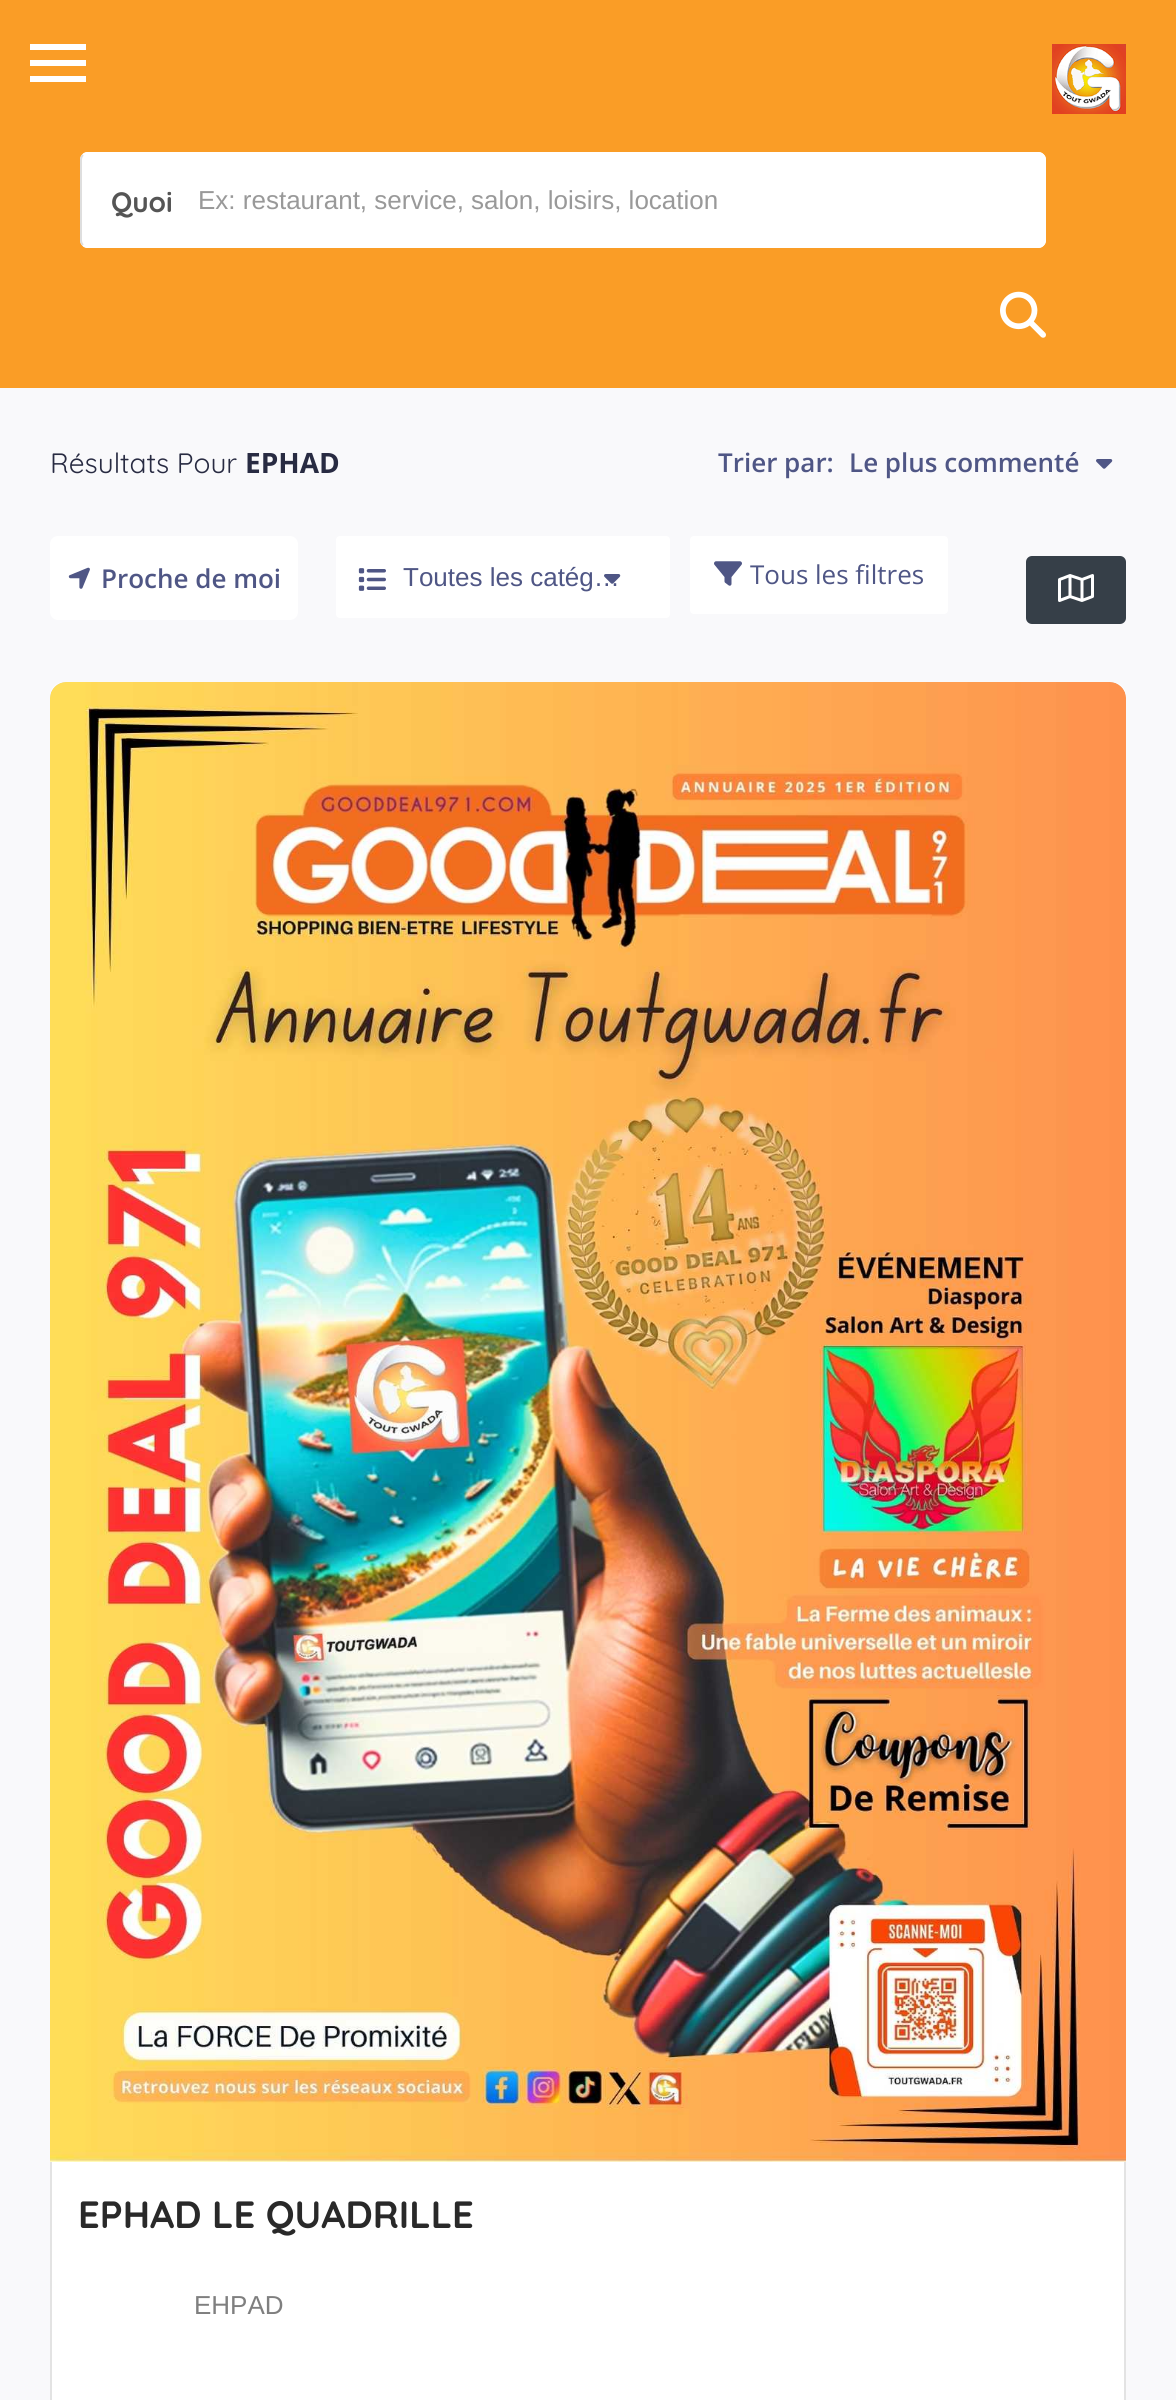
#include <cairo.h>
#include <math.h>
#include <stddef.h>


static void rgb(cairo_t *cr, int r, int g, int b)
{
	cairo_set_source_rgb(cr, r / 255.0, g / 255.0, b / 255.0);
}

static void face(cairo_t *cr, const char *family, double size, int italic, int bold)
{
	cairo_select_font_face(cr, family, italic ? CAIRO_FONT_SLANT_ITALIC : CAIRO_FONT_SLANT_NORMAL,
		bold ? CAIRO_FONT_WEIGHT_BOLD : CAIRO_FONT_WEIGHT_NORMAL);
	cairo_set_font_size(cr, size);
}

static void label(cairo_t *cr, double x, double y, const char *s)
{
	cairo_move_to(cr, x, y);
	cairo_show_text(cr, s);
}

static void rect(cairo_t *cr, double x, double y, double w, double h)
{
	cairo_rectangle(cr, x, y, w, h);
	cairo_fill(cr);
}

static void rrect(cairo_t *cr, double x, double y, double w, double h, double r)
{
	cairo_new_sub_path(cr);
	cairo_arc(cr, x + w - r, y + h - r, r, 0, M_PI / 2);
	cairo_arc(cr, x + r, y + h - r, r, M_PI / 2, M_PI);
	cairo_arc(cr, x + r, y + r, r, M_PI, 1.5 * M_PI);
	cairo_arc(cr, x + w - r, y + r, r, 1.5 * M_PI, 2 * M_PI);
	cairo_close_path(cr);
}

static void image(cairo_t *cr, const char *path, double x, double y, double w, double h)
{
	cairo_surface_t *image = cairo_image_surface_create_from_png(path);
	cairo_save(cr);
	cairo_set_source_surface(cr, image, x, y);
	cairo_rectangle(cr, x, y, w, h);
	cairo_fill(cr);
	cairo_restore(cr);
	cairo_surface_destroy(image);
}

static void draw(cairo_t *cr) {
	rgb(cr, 249, 249, 251);
	cairo_paint(cr);
	rgb(cr, 250, 157, 38);
	rect(cr, 0, 0, 1176, 388);
	rgb(cr, 255, 255, 255);
	rect(cr, 30, 44, 56, 6);
	rect(cr, 30, 60, 56, 6);
	rect(cr, 30, 76, 56, 6);
	image(cr, "image0.png", 1052, 44, 74, 70);
	rrect(cr, 80, 152, 966, 96, 8);
	cairo_fill(cr);
	cairo_new_path(cr);
	cairo_move_to(cr, 83, 155);
	cairo_curve_to(cr, 84.5, 153.5, 86, 153, 88, 153);
	cairo_line_to(cr, 1038, 153);
	cairo_curve_to(cr, 1040, 153, 1041.5, 153.5, 1043, 155);
	cairo_curve_to(cr, 1044.5, 156.5, 1045, 158, 1045, 160);
	cairo_line_to(cr, 1045, 240);
	cairo_curve_to(cr, 1045, 242, 1044.5, 243.5, 1043, 245);
	cairo_curve_to(cr, 1041.5, 246.5, 1040, 247, 1038, 247);
	cairo_line_to(cr, 88, 247);
	cairo_curve_to(cr, 86, 247, 84.5, 246.5, 83, 245);
	cairo_stroke(cr);
	cairo_new_path(cr);
	cairo_move_to(cr, 83, 245);
	cairo_curve_to(cr, 81.5, 243.5, 81, 242, 81, 240);
	cairo_line_to(cr, 81, 160);
	cairo_curve_to(cr, 81, 158, 81.5, 156.5, 83, 155);
	rgb(cr, 222, 222, 222);
	cairo_stroke(cr);
	face(cr, "Quicksand", 28, 0, 1);
	rgb(cr, 85, 85, 85);
	label(cr, 111, 212, "Quoi");
	face(cr, "Liberation Sans", 26, 0, 0);
	rgb(cr, 153, 153, 153);
	label(cr, 198, 209, "Ex: restaurant, service, salon, loisirs, location");
	image(cr, "image1.png", 1000, 291, 46, 47);
	face(cr, "Quicksand", 28, 0, 0);
	rgb(cr, 40, 43, 66);
	label(cr, 50, 473, "Résultats Pour");
	face(cr, "Open Sans", 28, 0, 1);
	label(cr, 245, 473, "EPHAD");
	face(cr, "Open Sans SemiBold", 26, 0, 0);
	rgb(cr, 79, 86, 133);
	label(cr, 718, 472, "Trier par:");
	label(cr, 849, 472, "Le plus commenté");
	image(cr, "image2.png", 1096, 459, 17, 10);
	rgb(cr, 255, 255, 255);
	rrect(cr, 50, 536, 248, 84, 8);
	cairo_fill(cr);
	image(cr, "image3.png", 68, 567, 22, 22);
	rgb(cr, 79, 86, 133);
	label(cr, 101, 588, "Proche de moi");
	rgb(cr, 255, 255, 255);
	rrect(cr, 336, 536, 334, 82, 4);
	cairo_fill(cr);
	image(cr, "image4.png", 358, 568, 28, 23);
	face(cr, "Liberation Sans", 26, 0, 0);
	rgb(cr, 79, 86, 133);
	label(cr, 403, 586, "Toutes les catég…");
	image(cr, "image5.png", 604, 574, 17, 10);
	rgb(cr, 255, 255, 255);
	rrect(cr, 690, 536, 258, 78, 4);
	cairo_fill(cr);
	image(cr, "image6.png", 714, 561, 28, 25);
	face(cr, "Open Sans", 26, 0, 0);
	rgb(cr, 79, 86, 133);
	label(cr, 750, 584, "Tous les filtres");
	rgb(cr, 54, 63, 72);
	rrect(cr, 1027, 557, 98, 66, 5);
	cairo_fill_preserve(cr);
	cairo_stroke(cr);
	image(cr, "image7.png", 1058, 574, 36, 28);
	rgb(cr, 255, 255, 255);
	rrect(cr, 50, 682, 1076, 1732, 14);
	cairo_fill(cr);
	rrect(cr, 51, 683, 1074, 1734, 15);
	rgb(cr, 227, 227, 227);
	cairo_stroke(cr);
	image(cr, "image8.png", 50, 682, 1076, 1480);
	face(cr, "Quicksand", 38, 0, 1);
	rgb(cr, 41, 41, 41);
	label(cr, 78, 2228, "EPHAD LE QUADRILLE");
	face(cr, "Liberation Sans", 26, 0, 0);
	rgb(cr, 127, 127, 127);
	label(cr, 194, 2314, "EHPAD");
}

int main(void) {
	cairo_surface_t *surface = cairo_image_surface_create(CAIRO_FORMAT_RGB24, 1176, 2400);
	cairo_t *cr = cairo_create(surface);
	cairo_font_options_t *options = cairo_font_options_create();
	cairo_font_options_set_hint_metrics(options, CAIRO_HINT_METRICS_OFF);
	cairo_font_options_set_hint_style(options, CAIRO_HINT_STYLE_NONE);
	cairo_set_font_options(cr, options);
	cairo_set_miter_limit(cr, 4);
	draw(cr);
	cairo_surface_write_to_png(surface, "render.png");
	cairo_font_options_destroy(options);
	cairo_destroy(cr);
	cairo_surface_destroy(surface);
	return 0;
}
